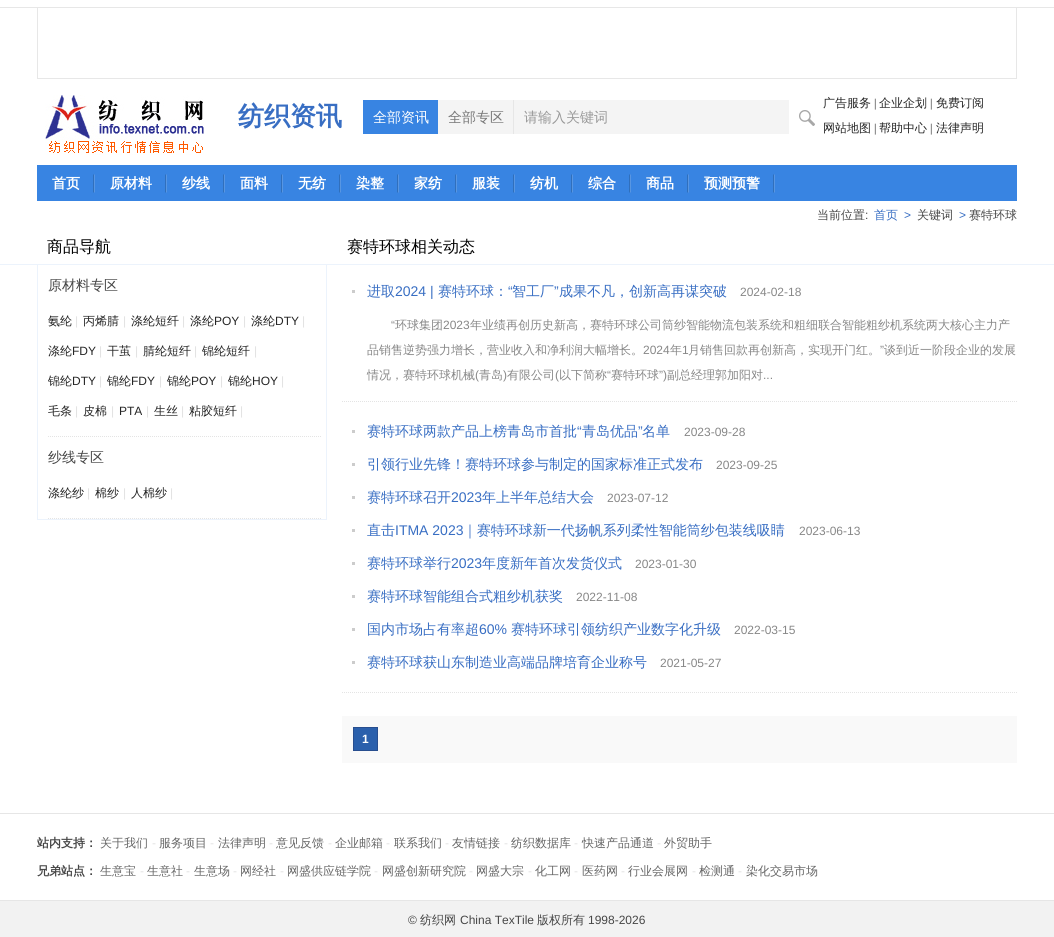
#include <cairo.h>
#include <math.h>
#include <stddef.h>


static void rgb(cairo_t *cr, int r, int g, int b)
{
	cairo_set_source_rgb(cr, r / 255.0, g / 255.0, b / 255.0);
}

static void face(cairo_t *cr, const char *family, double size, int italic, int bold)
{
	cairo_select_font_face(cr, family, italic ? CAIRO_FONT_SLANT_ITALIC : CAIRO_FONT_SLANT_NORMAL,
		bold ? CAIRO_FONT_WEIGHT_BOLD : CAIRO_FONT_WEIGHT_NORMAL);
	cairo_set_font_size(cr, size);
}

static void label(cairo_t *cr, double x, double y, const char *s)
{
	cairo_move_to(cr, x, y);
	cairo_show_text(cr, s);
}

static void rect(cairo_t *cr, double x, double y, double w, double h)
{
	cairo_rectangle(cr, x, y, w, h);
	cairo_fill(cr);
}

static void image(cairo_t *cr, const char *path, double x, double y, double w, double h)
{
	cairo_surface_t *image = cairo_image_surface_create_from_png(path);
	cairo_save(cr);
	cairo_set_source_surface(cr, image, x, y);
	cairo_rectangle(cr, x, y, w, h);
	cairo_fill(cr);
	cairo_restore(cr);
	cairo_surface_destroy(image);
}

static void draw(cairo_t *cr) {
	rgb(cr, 255, 255, 255);
	cairo_paint(cr);
	rgb(cr, 231, 231, 231);
	rect(cr, 0, 7, 1054, 1);
	rect(cr, 1016, 8, 1, 71);
	rect(cr, 37, 78, 980, 1);
	rect(cr, 37, 8, 1, 71);
	image(cr, "image0.png", 45, 95, 159, 60);
	face(cr, "WenQuanYi Zen Hei", 26, 0, 1);
	rgb(cr, 56, 110, 195);
	label(cr, 238, 125, "纺织资讯");
	rgb(cr, 56, 132, 226);
	rect(cr, 363, 100, 75, 34);
	face(cr, "WenQuanYi Zen Hei Medium", 14, 0, 0);
	rgb(cr, 255, 255, 255);
	label(cr, 373, 122, "全部资讯");
	rgb(cr, 244, 244, 244);
	rect(cr, 438, 100, 75, 34);
	rgb(cr, 230, 230, 230);
	rect(cr, 513, 100, 1, 34);
	rgb(cr, 120, 120, 120);
	label(cr, 448, 122, "全部专区");
	rgb(cr, 244, 244, 244);
	rect(cr, 514, 100, 275, 34);
	rgb(cr, 153, 153, 153);
	label(cr, 524, 122, "请输入关键词");
	image(cr, "image1.png", 799, 110, 16, 16);
	face(cr, "WenQuanYi Zen Hei Medium", 12, 0, 0);
	rgb(cr, 37, 37, 37);
	label(cr, 823, 107, "广告服务");
	face(cr, "Liberation Serif", 12, 0, 0);
	label(cr, 874, 107, "|");
	face(cr, "WenQuanYi Zen Hei Medium", 12, 0, 0);
	label(cr, 879, 107, "企业企划");
	face(cr, "Liberation Serif", 12, 0, 0);
	label(cr, 930, 107, "|");
	face(cr, "WenQuanYi Zen Hei Medium", 12, 0, 0);
	label(cr, 936, 107, "免费订阅");
	label(cr, 823, 132, "网站地图");
	face(cr, "Liberation Serif", 12, 0, 0);
	label(cr, 874, 132, "|");
	face(cr, "WenQuanYi Zen Hei Medium", 12, 0, 0);
	label(cr, 879, 132, "帮助中心");
	face(cr, "Liberation Serif", 12, 0, 0);
	label(cr, 930, 132, "|");
	face(cr, "WenQuanYi Zen Hei Medium", 12, 0, 0);
	label(cr, 936, 132, "法律声明");
	rgb(cr, 56, 132, 226);
	rect(cr, 37, 165, 980, 36);
	image(cr, "image2.png", 93, 174, 2, 19);
	face(cr, "WenQuanYi Zen Hei", 14, 0, 1);
	rgb(cr, 255, 255, 255);
	label(cr, 52, 188, "首页");
	image(cr, "image2.png", 165, 174, 2, 19);
	label(cr, 110, 188, "原材料");
	image(cr, "image2.png", 223, 174, 2, 19);
	label(cr, 182, 188, "纱线");
	image(cr, "image2.png", 281, 174, 2, 19);
	label(cr, 240, 188, "面料");
	image(cr, "image2.png", 339, 174, 2, 19);
	label(cr, 298, 188, "无纺");
	image(cr, "image2.png", 397, 174, 2, 19);
	label(cr, 356, 188, "染整");
	image(cr, "image2.png", 455, 174, 2, 19);
	label(cr, 414, 188, "家纺");
	image(cr, "image2.png", 513, 174, 2, 19);
	label(cr, 472, 188, "服装");
	image(cr, "image2.png", 571, 174, 2, 19);
	label(cr, 530, 188, "纺机");
	image(cr, "image2.png", 629, 174, 2, 19);
	label(cr, 588, 188, "综合");
	image(cr, "image2.png", 687, 174, 2, 19);
	label(cr, 646, 188, "商品");
	image(cr, "image2.png", 773, 174, 2, 19);
	label(cr, 704, 188, "预测预警");
	face(cr, "WenQuanYi Zen Hei Medium", 12, 0, 0);
	rgb(cr, 70, 70, 70);
	label(cr, 817, 219, "当前位置");
	face(cr, "Liberation Sans", 12, 0, 0);
	label(cr, 865, 219, ":");
	face(cr, "WenQuanYi Zen Hei Medium", 12, 0, 0);
	rgb(cr, 56, 110, 195);
	label(cr, 874, 219, "首页");
	face(cr, "Liberation Sans", 12, 0, 0);
	label(cr, 904, 219, ">");
	face(cr, "WenQuanYi Zen Hei Medium", 12, 0, 0);
	rgb(cr, 70, 70, 70);
	label(cr, 917, 219, "关键词");
	face(cr, "Liberation Sans", 12, 0, 0);
	rgb(cr, 56, 110, 195);
	label(cr, 959, 219, ">");
	face(cr, "WenQuanYi Zen Hei Medium", 12, 0, 0);
	rgb(cr, 70, 70, 70);
	label(cr, 969, 219, "赛特环球");
	rgb(cr, 236, 243, 252);
	rect(cr, 0, 264, 1054, 1);
	face(cr, "WenQuanYi Zen Hei Medium", 16, 0, 0);
	rgb(cr, 0, 0, 0);
	label(cr, 47, 252, "商品导航");
	label(cr, 347, 252, "赛特环球相关动态");
	rgb(cr, 236, 243, 252);
	rect(cr, 326, 265, 1, 255);
	rect(cr, 37, 519, 290, 1);
	rect(cr, 37, 265, 1, 255);
	face(cr, "WenQuanYi Zen Hei Medium", 14, 0, 0);
	rgb(cr, 70, 70, 70);
	label(cr, 48, 290, "原材料专区");
	face(cr, "WenQuanYi Zen Hei Medium", 12, 0, 0);
	rgb(cr, 37, 37, 37);
	label(cr, 48, 325, "氨纶");
	face(cr, "Liberation Sans", 12, 0, 0);
	rgb(cr, 225, 225, 225);
	label(cr, 75, 325, "|");
	face(cr, "WenQuanYi Zen Hei Medium", 12, 0, 0);
	rgb(cr, 37, 37, 37);
	label(cr, 83, 325, "丙烯腈");
	face(cr, "Liberation Sans", 12, 0, 0);
	rgb(cr, 225, 225, 225);
	label(cr, 123, 325, "|");
	face(cr, "WenQuanYi Zen Hei Medium", 12, 0, 0);
	rgb(cr, 37, 37, 37);
	label(cr, 131, 325, "涤纶短纤");
	face(cr, "Liberation Sans", 12, 0, 0);
	rgb(cr, 225, 225, 225);
	label(cr, 182, 325, "|");
	face(cr, "WenQuanYi Zen Hei Medium", 12, 0, 0);
	rgb(cr, 37, 37, 37);
	label(cr, 190, 325, "涤纶");
	face(cr, "Liberation Sans", 12, 0, 0);
	label(cr, 214, 325, "POY");
	rgb(cr, 225, 225, 225);
	label(cr, 243, 325, "|");
	face(cr, "WenQuanYi Zen Hei Medium", 12, 0, 0);
	rgb(cr, 37, 37, 37);
	label(cr, 251, 325, "涤纶");
	face(cr, "Liberation Sans", 12, 0, 0);
	label(cr, 275, 325, "DTY");
	rgb(cr, 225, 225, 225);
	label(cr, 302, 325, "|");
	face(cr, "WenQuanYi Zen Hei Medium", 12, 0, 0);
	rgb(cr, 37, 37, 37);
	label(cr, 48, 355, "涤纶");
	face(cr, "Liberation Sans", 12, 0, 0);
	label(cr, 72, 355, "FDY");
	rgb(cr, 225, 225, 225);
	label(cr, 99, 355, "|");
	face(cr, "WenQuanYi Zen Hei Medium", 12, 0, 0);
	rgb(cr, 37, 37, 37);
	label(cr, 107, 355, "干茧");
	face(cr, "Liberation Sans", 12, 0, 0);
	rgb(cr, 225, 225, 225);
	label(cr, 135, 355, "|");
	face(cr, "WenQuanYi Zen Hei Medium", 12, 0, 0);
	rgb(cr, 37, 37, 37);
	label(cr, 143, 355, "腈纶短纤");
	face(cr, "Liberation Sans", 12, 0, 0);
	rgb(cr, 225, 225, 225);
	label(cr, 194, 355, "|");
	face(cr, "WenQuanYi Zen Hei Medium", 12, 0, 0);
	rgb(cr, 37, 37, 37);
	label(cr, 202, 355, "锦纶短纤");
	face(cr, "Liberation Sans", 12, 0, 0);
	rgb(cr, 225, 225, 225);
	label(cr, 254, 355, "|");
	face(cr, "WenQuanYi Zen Hei Medium", 12, 0, 0);
	rgb(cr, 37, 37, 37);
	label(cr, 48, 385, "锦纶");
	face(cr, "Liberation Sans", 12, 0, 0);
	label(cr, 72, 385, "DTY");
	rgb(cr, 225, 225, 225);
	label(cr, 99, 385, "|");
	face(cr, "WenQuanYi Zen Hei Medium", 12, 0, 0);
	rgb(cr, 37, 37, 37);
	label(cr, 107, 385, "锦纶");
	face(cr, "Liberation Sans", 12, 0, 0);
	label(cr, 131, 385, "FDY");
	rgb(cr, 225, 225, 225);
	label(cr, 159, 385, "|");
	face(cr, "WenQuanYi Zen Hei Medium", 12, 0, 0);
	rgb(cr, 37, 37, 37);
	label(cr, 167, 385, "锦纶");
	face(cr, "Liberation Sans", 12, 0, 0);
	label(cr, 191, 385, "POY");
	rgb(cr, 225, 225, 225);
	label(cr, 220, 385, "|");
	face(cr, "WenQuanYi Zen Hei Medium", 12, 0, 0);
	rgb(cr, 37, 37, 37);
	label(cr, 228, 385, "锦纶");
	face(cr, "Liberation Sans", 12, 0, 0);
	label(cr, 252, 385, "HOY");
	rgb(cr, 225, 225, 225);
	label(cr, 281, 385, "|");
	face(cr, "WenQuanYi Zen Hei Medium", 12, 0, 0);
	rgb(cr, 37, 37, 37);
	label(cr, 48, 415, "毛条");
	face(cr, "Liberation Sans", 12, 0, 0);
	rgb(cr, 225, 225, 225);
	label(cr, 75, 415, "|");
	face(cr, "WenQuanYi Zen Hei Medium", 12, 0, 0);
	rgb(cr, 37, 37, 37);
	label(cr, 83, 415, "皮棉");
	face(cr, "Liberation Sans", 12, 0, 0);
	rgb(cr, 225, 225, 225);
	label(cr, 111, 415, "|");
	rgb(cr, 37, 37, 37);
	label(cr, 119, 415, "PTA");
	rgb(cr, 225, 225, 225);
	label(cr, 146, 415, "|");
	face(cr, "WenQuanYi Zen Hei Medium", 12, 0, 0);
	rgb(cr, 37, 37, 37);
	label(cr, 154, 415, "生丝");
	face(cr, "Liberation Sans", 12, 0, 0);
	rgb(cr, 225, 225, 225);
	label(cr, 181, 415, "|");
	face(cr, "WenQuanYi Zen Hei Medium", 12, 0, 0);
	rgb(cr, 37, 37, 37);
	label(cr, 189, 415, "粘胶短纤");
	face(cr, "Liberation Sans", 12, 0, 0);
	rgb(cr, 225, 225, 225);
	label(cr, 240, 415, "|");
	image(cr, "image3.png", 48, 436, 273, 1);
	face(cr, "WenQuanYi Zen Hei Medium", 14, 0, 0);
	rgb(cr, 70, 70, 70);
	label(cr, 48, 462, "纱线专区");
	face(cr, "WenQuanYi Zen Hei Medium", 12, 0, 0);
	rgb(cr, 37, 37, 37);
	label(cr, 48, 497, "涤纶纱");
	face(cr, "Liberation Sans", 12, 0, 0);
	rgb(cr, 225, 225, 225);
	label(cr, 87, 497, "|");
	face(cr, "WenQuanYi Zen Hei Medium", 12, 0, 0);
	rgb(cr, 37, 37, 37);
	label(cr, 95, 497, "棉纱");
	face(cr, "Liberation Sans", 12, 0, 0);
	rgb(cr, 225, 225, 225);
	label(cr, 123, 497, "|");
	face(cr, "WenQuanYi Zen Hei Medium", 12, 0, 0);
	rgb(cr, 37, 37, 37);
	label(cr, 131, 497, "人棉纱");
	face(cr, "Liberation Sans", 12, 0, 0);
	rgb(cr, 225, 225, 225);
	label(cr, 170, 497, "|");
	image(cr, "image3.png", 48, 518, 273, 1);
	rgb(cr, 204, 204, 204);
	rect(cr, 352, 290, 3, 3);
	face(cr, "WenQuanYi Zen Hei Medium", 14, 0, 0);
	rgb(cr, 56, 110, 195);
	label(cr, 367, 296, "进取");
	face(cr, "Liberation Sans", 14, 0, 0);
	label(cr, 395, 296, "2024 |");
	face(cr, "WenQuanYi Zen Hei Medium", 14, 0, 0);
	label(cr, 438, 296, "赛特环球：");
	face(cr, "Liberation Sans", 14, 0, 0);
	label(cr, 508, 296, "“");
	face(cr, "WenQuanYi Zen Hei Medium", 14, 0, 0);
	label(cr, 512, 296, "智工厂");
	face(cr, "Liberation Sans", 14, 0, 0);
	label(cr, 554, 296, "”");
	face(cr, "WenQuanYi Zen Hei Medium", 14, 0, 0);
	label(cr, 559, 296, "成果不凡，创新高再谋突破");
	face(cr, "Liberation Sans", 12, 0, 0);
	rgb(cr, 135, 135, 135);
	label(cr, 740, 296, "2024-02-18");
	label(cr, 391, 329, "“");
	face(cr, "WenQuanYi Zen Hei Medium", 12, 0, 0);
	label(cr, 395, 329, "环球集团");
	face(cr, "Liberation Sans", 12, 0, 0);
	label(cr, 443, 329, "2023");
	face(cr, "WenQuanYi Zen Hei Medium", 12, 0, 0);
	label(cr, 470, 329, "年业绩再创历史新高，赛特环球公司筒纱智能物流包装系统和粗细联合智能粗纱机系统两大核心主力产");
	label(cr, 367, 354, "品销售逆势强力增长，营业收入和净利润大幅增长。");
	face(cr, "Liberation Sans", 12, 0, 0);
	label(cr, 643, 354, "2024");
	face(cr, "WenQuanYi Zen Hei Medium", 12, 0, 0);
	label(cr, 670, 354, "年");
	face(cr, "Liberation Sans", 12, 0, 0);
	label(cr, 682, 354, "1");
	face(cr, "WenQuanYi Zen Hei Medium", 12, 0, 0);
	label(cr, 688, 354, "月销售回款再创新高，实现开门红。");
	face(cr, "Liberation Sans", 12, 0, 0);
	label(cr, 880, 354, "”");
	face(cr, "WenQuanYi Zen Hei Medium", 12, 0, 0);
	label(cr, 884, 354, "谈到近一阶段企业的发展");
	label(cr, 367, 379, "情况，赛特环球机械");
	face(cr, "Liberation Sans", 12, 0, 0);
	label(cr, 475, 379, "(");
	face(cr, "WenQuanYi Zen Hei Medium", 12, 0, 0);
	label(cr, 479, 379, "青岛");
	face(cr, "Liberation Sans", 12, 0, 0);
	label(cr, 503, 379, ")");
	face(cr, "WenQuanYi Zen Hei Medium", 12, 0, 0);
	label(cr, 507, 379, "有限公司");
	face(cr, "Liberation Sans", 12, 0, 0);
	label(cr, 555, 379, "(");
	face(cr, "WenQuanYi Zen Hei Medium", 12, 0, 0);
	label(cr, 559, 379, "以下简称");
	face(cr, "Liberation Sans", 12, 0, 0);
	label(cr, 607, 379, "“");
	face(cr, "WenQuanYi Zen Hei Medium", 12, 0, 0);
	label(cr, 611, 379, "赛特环球");
	face(cr, "Liberation Sans", 12, 0, 0);
	label(cr, 659, 379, "”)");
	face(cr, "WenQuanYi Zen Hei Medium", 12, 0, 0);
	label(cr, 667, 379, "副总经理郭加阳对");
	face(cr, "Liberation Sans", 12, 0, 0);
	label(cr, 763, 379, "...");
	image(cr, "image4.png", 342, 401, 675, 1);
	rgb(cr, 204, 204, 204);
	rect(cr, 352, 430, 3, 3);
	face(cr, "WenQuanYi Zen Hei Medium", 14, 0, 0);
	rgb(cr, 56, 110, 195);
	label(cr, 367, 436, "赛特环球两款产品上榜青岛市首批");
	face(cr, "Liberation Sans", 14, 0, 0);
	label(cr, 577, 436, "“");
	face(cr, "WenQuanYi Zen Hei Medium", 14, 0, 0);
	label(cr, 582, 436, "青岛优品");
	face(cr, "Liberation Sans", 14, 0, 0);
	label(cr, 638, 436, "”");
	face(cr, "WenQuanYi Zen Hei Medium", 14, 0, 0);
	label(cr, 642, 436, "名单");
	face(cr, "Liberation Sans", 12, 0, 0);
	rgb(cr, 135, 135, 135);
	label(cr, 684, 436, "2023-09-28");
	rgb(cr, 204, 204, 204);
	rect(cr, 352, 463, 3, 3);
	face(cr, "WenQuanYi Zen Hei Medium", 14, 0, 0);
	rgb(cr, 56, 110, 195);
	label(cr, 367, 469, "引领行业先锋！赛特环球参与制定的国家标准正式发布");
	face(cr, "Liberation Sans", 12, 0, 0);
	rgb(cr, 135, 135, 135);
	label(cr, 716, 469, "2023-09-25");
	rgb(cr, 204, 204, 204);
	rect(cr, 352, 496, 3, 3);
	face(cr, "WenQuanYi Zen Hei Medium", 14, 0, 0);
	rgb(cr, 56, 110, 195);
	label(cr, 367, 502, "赛特环球召开");
	face(cr, "Liberation Sans", 14, 0, 0);
	label(cr, 451, 502, "2023");
	face(cr, "WenQuanYi Zen Hei Medium", 14, 0, 0);
	label(cr, 482, 502, "年上半年总结大会");
	face(cr, "Liberation Sans", 12, 0, 0);
	rgb(cr, 135, 135, 135);
	label(cr, 607, 502, "2023-07-12");
	rgb(cr, 204, 204, 204);
	rect(cr, 352, 529, 3, 3);
	face(cr, "WenQuanYi Zen Hei Medium", 14, 0, 0);
	rgb(cr, 56, 110, 195);
	label(cr, 367, 535, "直击");
	face(cr, "Liberation Sans", 14, 0, 0);
	label(cr, 395, 535, "ITMA 2023");
	face(cr, "WenQuanYi Zen Hei Medium", 14, 0, 0);
	label(cr, 463, 535, "｜赛特环球新一代扬帆系列柔性智能筒纱包装线吸睛");
	face(cr, "Liberation Sans", 12, 0, 0);
	rgb(cr, 135, 135, 135);
	label(cr, 799, 535, "2023-06-13");
	rgb(cr, 204, 204, 204);
	rect(cr, 352, 562, 3, 3);
	face(cr, "WenQuanYi Zen Hei Medium", 14, 0, 0);
	rgb(cr, 56, 110, 195);
	label(cr, 367, 568, "赛特环球举行");
	face(cr, "Liberation Sans", 14, 0, 0);
	label(cr, 451, 568, "2023");
	face(cr, "WenQuanYi Zen Hei Medium", 14, 0, 0);
	label(cr, 482, 568, "年度新年首次发货仪式");
	face(cr, "Liberation Sans", 12, 0, 0);
	rgb(cr, 135, 135, 135);
	label(cr, 635, 568, "2023-01-30");
	rgb(cr, 204, 204, 204);
	rect(cr, 352, 595, 3, 3);
	face(cr, "WenQuanYi Zen Hei Medium", 14, 0, 0);
	rgb(cr, 56, 110, 195);
	label(cr, 367, 601, "赛特环球智能组合式粗纱机获奖");
	face(cr, "Liberation Sans", 12, 0, 0);
	rgb(cr, 135, 135, 135);
	label(cr, 576, 601, "2022-11-08");
	rgb(cr, 204, 204, 204);
	rect(cr, 352, 628, 3, 3);
	face(cr, "WenQuanYi Zen Hei Medium", 14, 0, 0);
	rgb(cr, 56, 110, 195);
	label(cr, 367, 634, "国内市场占有率超");
	face(cr, "Liberation Sans", 14, 0, 0);
	label(cr, 479, 634, "60%");
	face(cr, "WenQuanYi Zen Hei Medium", 14, 0, 0);
	label(cr, 511, 634, "赛特环球引领纺织产业数字化升级");
	face(cr, "Liberation Sans", 12, 0, 0);
	rgb(cr, 135, 135, 135);
	label(cr, 734, 634, "2022-03-15");
	rgb(cr, 204, 204, 204);
	rect(cr, 352, 661, 3, 3);
	face(cr, "WenQuanYi Zen Hei Medium", 14, 0, 0);
	rgb(cr, 56, 110, 195);
	label(cr, 367, 667, "赛特环球获山东制造业高端品牌培育企业称号");
	face(cr, "Liberation Sans", 12, 0, 0);
	rgb(cr, 135, 135, 135);
	label(cr, 660, 667, "2021-05-27");
	image(cr, "image4.png", 342, 692, 675, 1);
	rgb(cr, 249, 249, 249);
	rect(cr, 342, 716, 675, 47);
	rgb(cr, 43, 96, 172);
	cairo_rectangle(cr, 353.5, 727.5, 24, 23);
	cairo_fill_preserve(cr);
	rgb(cr, 40, 78, 143);
	cairo_set_line_width(cr, 1);
	cairo_stroke(cr);
	face(cr, "Liberation Sans", 12, 0, 1);
	rgb(cr, 255, 255, 255);
	label(cr, 362, 743, "1");
	rgb(cr, 230, 230, 230);
	rect(cr, 0, 813, 1054, 1);
	rect(cr, 0, 900, 1054, 1);
	face(cr, "WenQuanYi Zen Hei", 12, 0, 1);
	rgb(cr, 70, 70, 70);
	label(cr, 37, 847, "站内支持：");
	face(cr, "WenQuanYi Zen Hei Medium", 12, 0, 0);
	rgb(cr, 102, 102, 102);
	label(cr, 100, 847, "关于我们");
	face(cr, "Liberation Sans", 12, 0, 0);
	rgb(cr, 225, 225, 225);
	label(cr, 152, 847, "-");
	face(cr, "WenQuanYi Zen Hei Medium", 12, 0, 0);
	rgb(cr, 102, 102, 102);
	label(cr, 159, 847, "服务项目");
	face(cr, "Liberation Sans", 12, 0, 0);
	rgb(cr, 225, 225, 225);
	label(cr, 210, 847, "-");
	face(cr, "WenQuanYi Zen Hei Medium", 12, 0, 0);
	rgb(cr, 102, 102, 102);
	label(cr, 218, 847, "法律声明");
	face(cr, "Liberation Sans", 12, 0, 0);
	rgb(cr, 225, 225, 225);
	label(cr, 269, 847, "-");
	face(cr, "WenQuanYi Zen Hei Medium", 12, 0, 0);
	rgb(cr, 102, 102, 102);
	label(cr, 276, 847, "意见反馈");
	face(cr, "Liberation Sans", 12, 0, 0);
	rgb(cr, 225, 225, 225);
	label(cr, 328, 847, "-");
	face(cr, "WenQuanYi Zen Hei Medium", 12, 0, 0);
	rgb(cr, 102, 102, 102);
	label(cr, 335, 847, "企业邮箱");
	face(cr, "Liberation Sans", 12, 0, 0);
	rgb(cr, 225, 225, 225);
	label(cr, 386, 847, "-");
	face(cr, "WenQuanYi Zen Hei Medium", 12, 0, 0);
	rgb(cr, 102, 102, 102);
	label(cr, 394, 847, "联系我们");
	face(cr, "Liberation Sans", 12, 0, 0);
	rgb(cr, 225, 225, 225);
	label(cr, 445, 847, "-");
	face(cr, "WenQuanYi Zen Hei Medium", 12, 0, 0);
	rgb(cr, 102, 102, 102);
	label(cr, 452, 847, "友情链接");
	face(cr, "Liberation Sans", 12, 0, 0);
	rgb(cr, 225, 225, 225);
	label(cr, 504, 847, "-");
	face(cr, "WenQuanYi Zen Hei Medium", 12, 0, 0);
	rgb(cr, 102, 102, 102);
	label(cr, 511, 847, "纺织数据库");
	face(cr, "Liberation Sans", 12, 0, 0);
	rgb(cr, 225, 225, 225);
	label(cr, 574, 847, "-");
	face(cr, "WenQuanYi Zen Hei Medium", 12, 0, 0);
	rgb(cr, 102, 102, 102);
	label(cr, 582, 847, "快速产品通道");
	face(cr, "Liberation Sans", 12, 0, 0);
	rgb(cr, 225, 225, 225);
	label(cr, 657, 847, "-");
	face(cr, "WenQuanYi Zen Hei Medium", 12, 0, 0);
	rgb(cr, 102, 102, 102);
	label(cr, 664, 847, "外贸助手");
	face(cr, "WenQuanYi Zen Hei", 12, 0, 1);
	rgb(cr, 70, 70, 70);
	label(cr, 37, 875, "兄弟站点：");
	face(cr, "WenQuanYi Zen Hei Medium", 12, 0, 0);
	rgb(cr, 102, 102, 102);
	label(cr, 100, 875, "生意宝");
	face(cr, "Liberation Sans", 12, 0, 0);
	rgb(cr, 225, 225, 225);
	label(cr, 140, 875, "-");
	face(cr, "WenQuanYi Zen Hei Medium", 12, 0, 0);
	rgb(cr, 102, 102, 102);
	label(cr, 147, 875, "生意社");
	face(cr, "Liberation Sans", 12, 0, 0);
	rgb(cr, 225, 225, 225);
	label(cr, 186, 875, "-");
	face(cr, "WenQuanYi Zen Hei Medium", 12, 0, 0);
	rgb(cr, 102, 102, 102);
	label(cr, 194, 875, "生意场");
	face(cr, "Liberation Sans", 12, 0, 0);
	rgb(cr, 225, 225, 225);
	label(cr, 233, 875, "-");
	face(cr, "WenQuanYi Zen Hei Medium", 12, 0, 0);
	rgb(cr, 102, 102, 102);
	label(cr, 240, 875, "网经社");
	face(cr, "Liberation Sans", 12, 0, 0);
	rgb(cr, 225, 225, 225);
	label(cr, 280, 875, "-");
	face(cr, "WenQuanYi Zen Hei Medium", 12, 0, 0);
	rgb(cr, 102, 102, 102);
	label(cr, 287, 875, "网盛供应链学院");
	face(cr, "Liberation Sans", 12, 0, 0);
	rgb(cr, 225, 225, 225);
	label(cr, 374, 875, "-");
	face(cr, "WenQuanYi Zen Hei Medium", 12, 0, 0);
	rgb(cr, 102, 102, 102);
	label(cr, 382, 875, "网盛创新研究院");
	face(cr, "Liberation Sans", 12, 0, 0);
	rgb(cr, 225, 225, 225);
	label(cr, 469, 875, "-");
	face(cr, "WenQuanYi Zen Hei Medium", 12, 0, 0);
	rgb(cr, 102, 102, 102);
	label(cr, 476, 875, "网盛大宗");
	face(cr, "Liberation Sans", 12, 0, 0);
	rgb(cr, 225, 225, 225);
	label(cr, 528, 875, "-");
	face(cr, "WenQuanYi Zen Hei Medium", 12, 0, 0);
	rgb(cr, 102, 102, 102);
	label(cr, 535, 875, "化工网");
	face(cr, "Liberation Sans", 12, 0, 0);
	rgb(cr, 225, 225, 225);
	label(cr, 574, 875, "-");
	face(cr, "WenQuanYi Zen Hei Medium", 12, 0, 0);
	rgb(cr, 102, 102, 102);
	label(cr, 582, 875, "医药网");
	face(cr, "Liberation Sans", 12, 0, 0);
	rgb(cr, 225, 225, 225);
	label(cr, 621, 875, "-");
	face(cr, "WenQuanYi Zen Hei Medium", 12, 0, 0);
	rgb(cr, 102, 102, 102);
	label(cr, 628, 875, "行业会展网");
	face(cr, "Liberation Sans", 12, 0, 0);
	rgb(cr, 225, 225, 225);
	label(cr, 692, 875, "-");
	face(cr, "WenQuanYi Zen Hei Medium", 12, 0, 0);
	rgb(cr, 102, 102, 102);
	label(cr, 699, 875, "检测通");
	face(cr, "Liberation Sans", 12, 0, 0);
	rgb(cr, 225, 225, 225);
	label(cr, 738, 875, "-");
	face(cr, "WenQuanYi Zen Hei Medium", 12, 0, 0);
	rgb(cr, 102, 102, 102);
	label(cr, 746, 875, "染化交易市场");
	rgb(cr, 242, 242, 242);
	rect(cr, 0, 901, 1054, 36);
	face(cr, "Liberation Sans", 12, 0, 0);
	rgb(cr, 70, 70, 70);
	label(cr, 408, 924, "©");
	face(cr, "WenQuanYi Zen Hei Medium", 12, 0, 0);
	label(cr, 420, 924, "纺织网");
	face(cr, "Liberation Sans", 12, 0, 0);
	label(cr, 460, 924, "China TexTile");
	face(cr, "WenQuanYi Zen Hei Medium", 12, 0, 0);
	label(cr, 537, 924, "版权所有");
	face(cr, "Liberation Sans", 12, 0, 0);
	label(cr, 588, 924, "1998-2026");
}

int main(void) {
	cairo_surface_t *surface = cairo_image_surface_create(CAIRO_FORMAT_RGB24, 1054, 937);
	cairo_t *cr = cairo_create(surface);
	cairo_font_options_t *options = cairo_font_options_create();
	cairo_font_options_set_hint_metrics(options, CAIRO_HINT_METRICS_OFF);
	cairo_font_options_set_hint_style(options, CAIRO_HINT_STYLE_NONE);
	cairo_set_font_options(cr, options);
	cairo_set_miter_limit(cr, 4);
	draw(cr);
	cairo_surface_write_to_png(surface, "render.png");
	cairo_font_options_destroy(options);
	cairo_destroy(cr);
	cairo_surface_destroy(surface);
	return 0;
}
